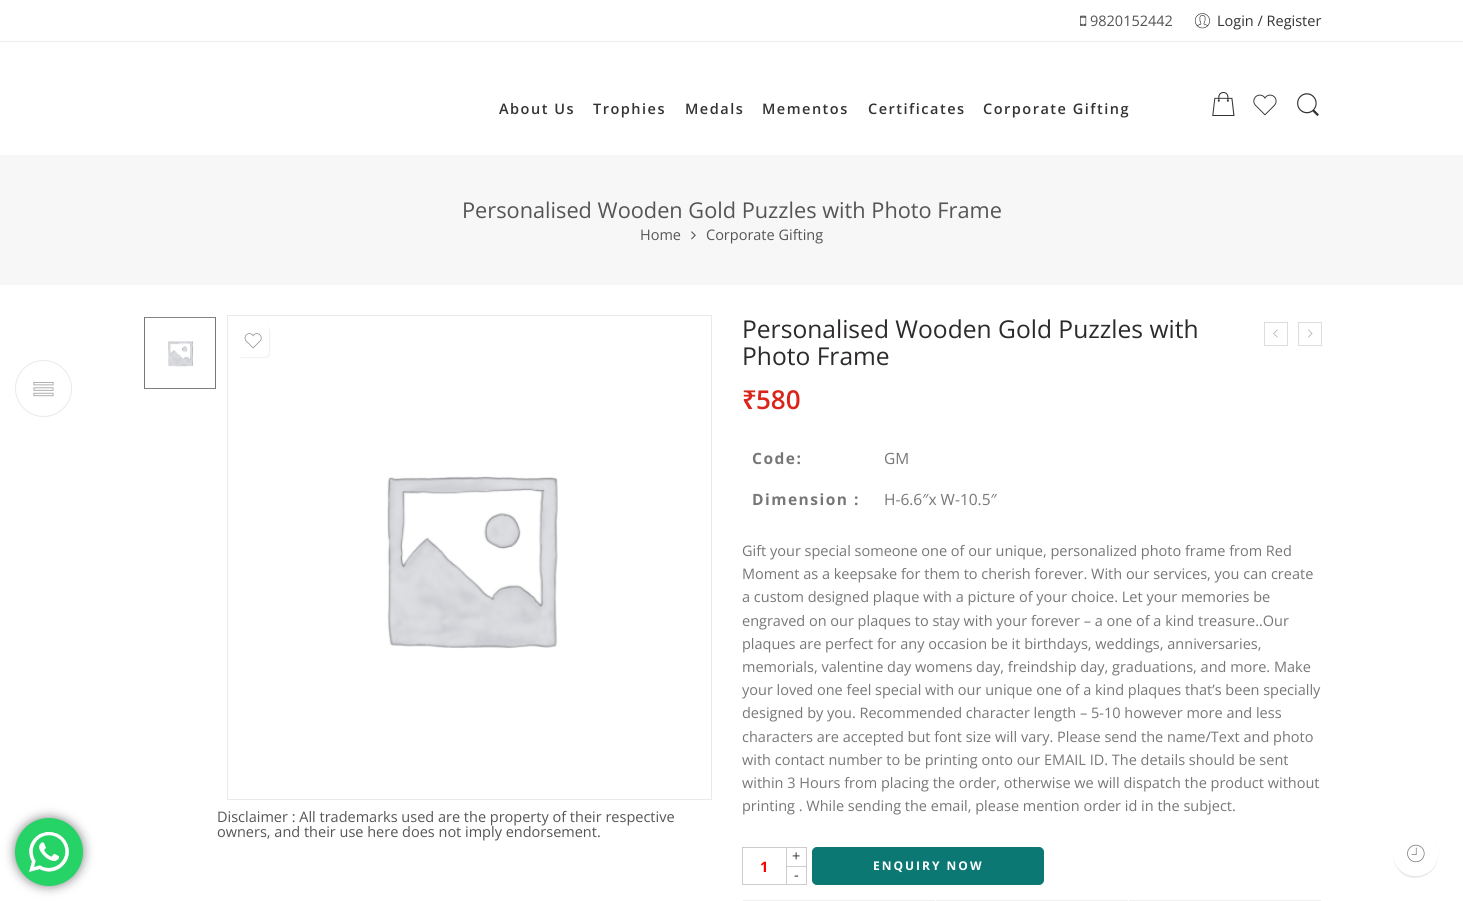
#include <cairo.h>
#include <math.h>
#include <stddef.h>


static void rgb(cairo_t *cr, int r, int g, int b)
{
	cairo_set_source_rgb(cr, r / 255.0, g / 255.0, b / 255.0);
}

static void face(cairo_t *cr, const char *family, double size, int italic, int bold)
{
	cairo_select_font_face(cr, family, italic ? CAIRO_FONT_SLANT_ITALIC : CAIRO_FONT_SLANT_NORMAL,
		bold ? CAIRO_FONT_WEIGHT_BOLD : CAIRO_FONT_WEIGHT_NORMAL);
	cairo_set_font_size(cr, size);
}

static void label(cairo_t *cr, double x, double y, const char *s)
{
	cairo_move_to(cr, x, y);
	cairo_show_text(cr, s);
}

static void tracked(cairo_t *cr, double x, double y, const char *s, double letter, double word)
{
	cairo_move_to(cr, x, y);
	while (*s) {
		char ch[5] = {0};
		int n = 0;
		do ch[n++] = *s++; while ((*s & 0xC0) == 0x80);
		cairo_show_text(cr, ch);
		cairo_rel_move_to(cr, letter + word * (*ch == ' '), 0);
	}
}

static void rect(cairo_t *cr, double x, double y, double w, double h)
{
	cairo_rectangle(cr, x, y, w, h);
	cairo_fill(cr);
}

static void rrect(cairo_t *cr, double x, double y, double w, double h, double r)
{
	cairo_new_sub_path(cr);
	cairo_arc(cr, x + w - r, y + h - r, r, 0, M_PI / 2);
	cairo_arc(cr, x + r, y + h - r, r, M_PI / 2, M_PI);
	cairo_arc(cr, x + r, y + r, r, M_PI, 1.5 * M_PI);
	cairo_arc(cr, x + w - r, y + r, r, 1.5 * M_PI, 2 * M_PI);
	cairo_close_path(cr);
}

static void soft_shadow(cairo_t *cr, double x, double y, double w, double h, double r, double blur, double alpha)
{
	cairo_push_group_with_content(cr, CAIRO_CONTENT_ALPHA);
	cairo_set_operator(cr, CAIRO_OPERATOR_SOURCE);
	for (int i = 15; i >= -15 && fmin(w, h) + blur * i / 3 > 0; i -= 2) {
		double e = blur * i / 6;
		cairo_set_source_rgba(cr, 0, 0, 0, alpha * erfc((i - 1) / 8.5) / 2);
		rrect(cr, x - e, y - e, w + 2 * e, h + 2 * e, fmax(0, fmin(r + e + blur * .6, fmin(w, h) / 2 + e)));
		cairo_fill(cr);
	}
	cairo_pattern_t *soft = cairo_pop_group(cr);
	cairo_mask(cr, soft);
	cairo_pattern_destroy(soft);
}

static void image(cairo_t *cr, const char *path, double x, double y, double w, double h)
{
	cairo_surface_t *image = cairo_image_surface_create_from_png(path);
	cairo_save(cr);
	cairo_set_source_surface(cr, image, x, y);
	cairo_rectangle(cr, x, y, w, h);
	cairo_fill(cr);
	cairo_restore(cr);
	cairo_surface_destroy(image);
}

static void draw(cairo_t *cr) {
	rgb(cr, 255, 255, 255);
	cairo_paint(cr);
	rgb(cr, 0, 0, 0);
	soft_shadow(cr, 15, 818, 68, 68, 34, 5.5, 0.5);
	rgb(cr, 37, 211, 102);
	cairo_arc(cr, 49, 852, 34, 0, 2 * M_PI);
	cairo_fill(cr);
	image(cr, "image0.png", 29, 832, 40, 40);
	rgb(cr, 236, 236, 236);
	rect(cr, 0, 41, 1463, 1);
	image(cr, "image1.png", 1080, 15, 7, 11);
	face(cr, "Open Sans", 14.5, 0, 0);
	rgb(cr, 85, 85, 85);
	label(cr, 1090, 26, "9820152442");
	image(cr, "image2.png", 1194, 13, 16, 16);
	rgb(cr, 51, 51, 51);
	label(cr, 1217, 26, "Login / Register");
	face(cr, "Open Sans SemiBold", 14.5, 0, 0);
	tracked(cr, 499, 114, "About Us", 1.5, 0);
	tracked(cr, 593, 114, "Trophies", 1.5, 0);
	tracked(cr, 685, 114, "Medals", 1.5, 0);
	tracked(cr, 762, 114, "Mementos", 1.5, 0);
	tracked(cr, 868, 114, "Certificates", 1.5, 0);
	tracked(cr, 983, 114, "Corporate Gifting", 1.5, 0);
	image(cr, "image3.png", 1212, 92, 23, 24);
	image(cr, "image4.png", 1253, 94, 24, 22);
	image(cr, "image5.png", 1297, 93, 22, 24);
	rgb(cr, 247, 247, 247);
	rect(cr, 0, 155, 1463, 130);
	face(cr, "Open Sans", 21.75, 0, 0);
	rgb(cr, 85, 85, 85);
	label(cr, 462, 218, "Personalised Wooden Gold Puzzles with Photo Frame");
	face(cr, "Open Sans", 14.5, 0, 0);
	label(cr, 640, 240, "Home");
	image(cr, "image6.png", 691, 231, 5, 9);
	label(cr, 706, 240, "Corporate Gifting");
	cairo_new_path(cr);
	cairo_arc(cr, 43.5, 388.5, 28, 0, 2 * M_PI);
	rgb(cr, 233, 233, 233);
	cairo_set_line_width(cr, 1);
	cairo_stroke(cr);
	image(cr, "image7.png", 33, 382, 21, 15);
	cairo_rectangle(cr, 144.5, 317.5, 71, 71);
	rgb(cr, 119, 119, 119);
	cairo_stroke(cr);
	image(cr, "image8.png", 145, 317, 70, 72);
	cairo_rectangle(cr, 227.5, 315.5, 484, 484);
	rgb(cr, 234, 234, 234);
	cairo_stroke(cr);
	image(cr, "image9.png", 387, 476, 171, 173);
	rgb(cr, 102, 102, 102);
	soft_shadow(cr, 238, 326, 32, 32, 5, 0.5, 0.1);
	rgb(cr, 255, 255, 255);
	rrect(cr, 237, 325, 32, 32, 5);
	cairo_fill(cr);
	image(cr, "image10.png", 244, 333, 18, 16);
	rgb(cr, 85, 85, 85);
	label(cr, 217, 822, "Disclaimer : All trademarks used are the property of their respective");
	label(cr, 217, 837, "owners, and their use here does not imply endorsement.");
	face(cr, "Open Sans", 24.6, 0, 0);
	rgb(cr, 45, 42, 42);
	label(cr, 742, 338, "Personalised Wooden Gold Puzzles with");
	label(cr, 742, 365, "Photo Frame");
	cairo_rectangle(cr, 1264.5, 322.5, 23, 23);
	rgb(cr, 221, 221, 221);
	cairo_stroke(cr);
	image(cr, "image11.png", 1273, 329, 5, 9);
	cairo_rectangle(cr, 1298.5, 322.5, 23, 23);
	cairo_stroke(cr);
	image(cr, "image12.png", 1308, 329, 5, 9);
	face(cr, "Noto Sans SemiBold", 26, 0, 0);
	rgb(cr, 217, 37, 28);
	label(cr, 742, 409, "₹");
	face(cr, "Open Sans SemiBold", 26, 0, 0);
	label(cr, 756, 409, "580");
	face(cr, "Open Sans", 15.5, 0, 1);
	rgb(cr, 119, 119, 119);
	tracked(cr, 752, 464, "Code:", 1.5, 0);
	face(cr, "Open Sans", 15.5, 0, 0);
	label(cr, 884, 464, "GM");
	face(cr, "Open Sans", 15.5, 0, 1);
	tracked(cr, 752, 505, "Dimension :", 1.5, 0);
	face(cr, "Open Sans", 15.5, 0, 0);
	label(cr, 884, 505, "H-6.6″x W-10.5″");
	face(cr, "Open Sans", 14.5, 0, 0);
	label(cr, 742, 556, "Gift your special someone one of our unique, personalized photo frame from Red");
	label(cr, 742, 579, "Moment as a keepsake for them to cherish forever. With our services, you can create");
	label(cr, 742, 602, "a custom designed plaque with a picture of your choice. Let your memories be");
	label(cr, 742, 626, "engraved on our plaques to stay with your forever – a one of a kind treasure..Our");
	label(cr, 742, 649, "plaques are perfect for any occasion be it birthdays, weddings, anniversaries,");
	label(cr, 742, 672, "memorials, valentine day womens day, freindship day, graduations, and more. Make");
	label(cr, 742, 695, "your loved one feel special with our unique one of a kind plaques that’s been specially");
	label(cr, 742, 718, "designed by you. Recommended character length – 5-10 however more and less");
	label(cr, 742, 742, "characters are accepted but font size will vary. Please send the name/Text and photo");
	label(cr, 742, 765, "with contact number to be printing onto our EMAIL ID. The details should be sent");
	label(cr, 742, 788, "within 3 Hours from placing the order, otherwise we will dispatch the product without");
	label(cr, 742, 811, "printing . While sending the email, please mention order id in the subject.");
	cairo_rectangle(cr, 742.5, 847.5, 44, 37);
	rgb(cr, 204, 204, 204);
	cairo_stroke(cr);
	cairo_rectangle(cr, 786.5, 847.5, 20, 19);
	cairo_stroke(cr);
	rgb(cr, 51, 51, 51);
	label(cr, 792, 861, "+");
	face(cr, "Open Sans", 14.5, 0, 1);
	rgb(cr, 251, 0, 0);
	label(cr, 760, 872, "1");
	rgb(cr, 204, 204, 204);
	rect(cr, 806, 867, 1, 18);
	rect(cr, 786, 884, 21, 1);
	face(cr, "Open Sans", 14.5, 0, 0);
	rgb(cr, 51, 51, 51);
	label(cr, 794, 880, "-");
	rgb(cr, 11, 120, 115);
	rrect(cr, 812.5, 847.5, 231, 37, 4.5);
	cairo_fill_preserve(cr);
	cairo_stroke(cr);
	face(cr, "Open Sans", 12, 0, 1);
	rgb(cr, 255, 255, 255);
	tracked(cr, 873, 870, "ENQUIRY NOW", 2, 0);
	rgb(cr, 239, 239, 239);
	rect(cr, 742, 900, 579, 1);
	rgb(cr, 255, 255, 255);
	rect(cr, 742, 899, 1, 2);
	rect(cr, 935, 899, 1, 2);
	rect(cr, 1128, 899, 1, 2);
	cairo_new_path(cr);
	cairo_arc(cr, 1416, 854, 22.75, 0, 2 * M_PI);
	rgb(cr, 247, 247, 247);
	cairo_set_line_width(cr, 0.5);
	cairo_stroke(cr);
	cairo_set_source_rgba(cr, 0, 0, 0, 0.08);
	cairo_new_path(cr);
	cairo_move_to(cr, 1393, 854);
	cairo_curve_to(cr, 1393, 859, 1394, 864, 1397, 868);
	cairo_curve_to(cr, 1409, 887, 1439, 877, 1438, 854);
	cairo_curve_to(cr, 1437, 883, 1394, 883, 1393, 854);
	cairo_close_path(cr);
	cairo_fill(cr);
	rgb(cr, 255, 255, 255);
	cairo_arc(cr, 1415.5, 853.5, 22.5, 0, 2 * M_PI);
	cairo_fill(cr);
	image(cr, "image13.png", 1407, 844, 18, 19);
}

int main(void) {
	cairo_surface_t *surface = cairo_image_surface_create(CAIRO_FORMAT_RGB24, 1463, 901);
	cairo_t *cr = cairo_create(surface);
	cairo_font_options_t *options = cairo_font_options_create();
	cairo_font_options_set_hint_metrics(options, CAIRO_HINT_METRICS_OFF);
	cairo_font_options_set_hint_style(options, CAIRO_HINT_STYLE_NONE);
	cairo_set_font_options(cr, options);
	cairo_set_miter_limit(cr, 4);
	draw(cr);
	cairo_surface_write_to_png(surface, "render.png");
	cairo_font_options_destroy(options);
	cairo_destroy(cr);
	cairo_surface_destroy(surface);
	return 0;
}
